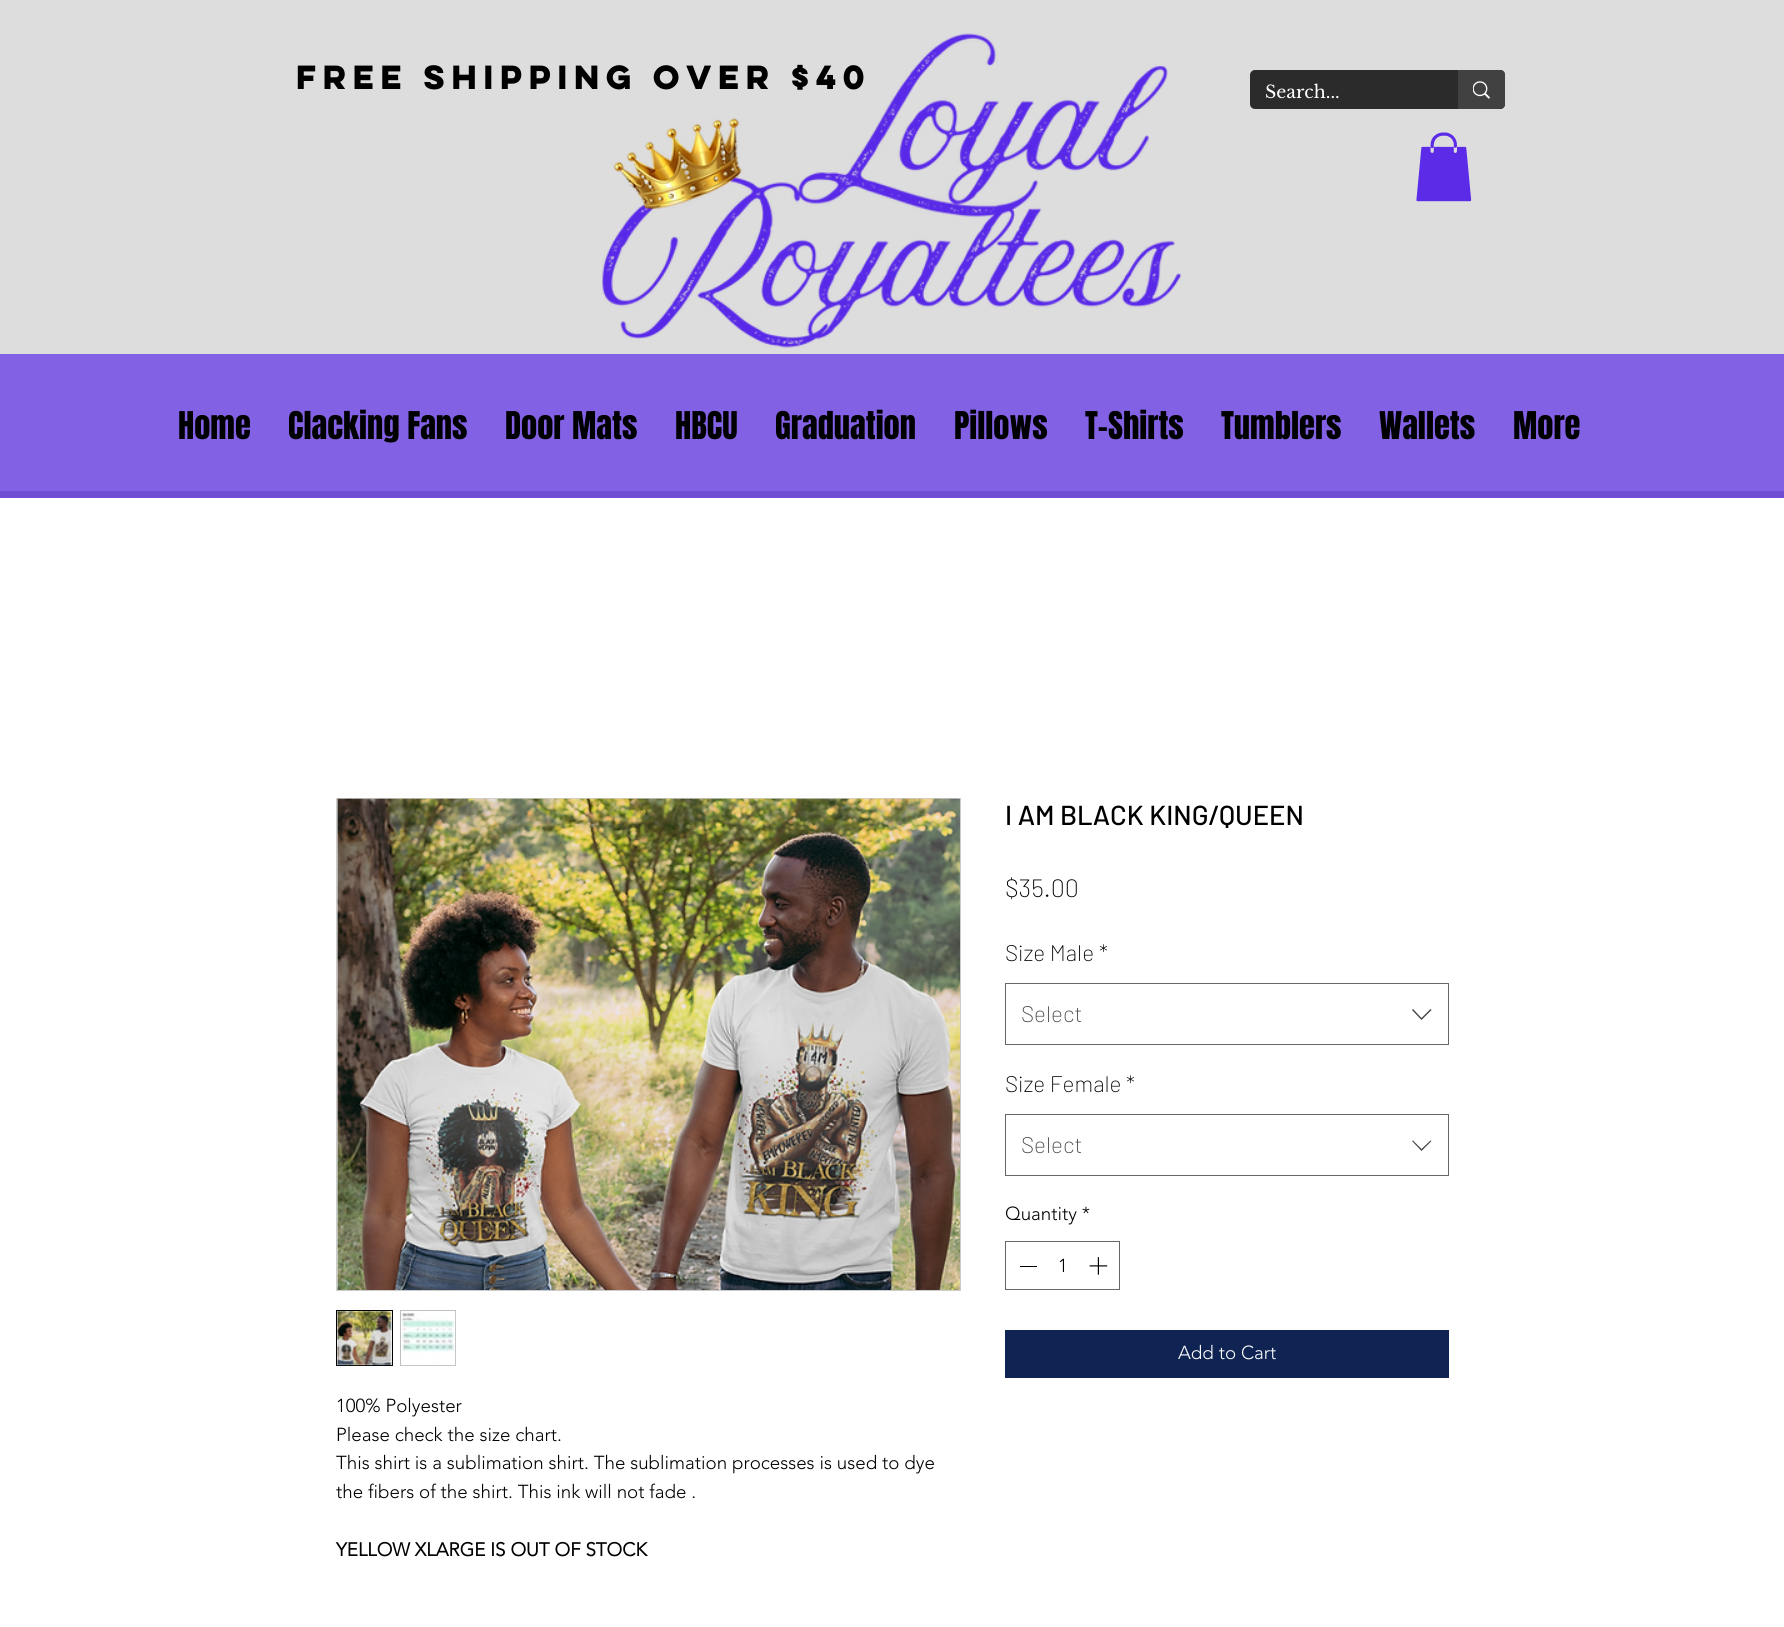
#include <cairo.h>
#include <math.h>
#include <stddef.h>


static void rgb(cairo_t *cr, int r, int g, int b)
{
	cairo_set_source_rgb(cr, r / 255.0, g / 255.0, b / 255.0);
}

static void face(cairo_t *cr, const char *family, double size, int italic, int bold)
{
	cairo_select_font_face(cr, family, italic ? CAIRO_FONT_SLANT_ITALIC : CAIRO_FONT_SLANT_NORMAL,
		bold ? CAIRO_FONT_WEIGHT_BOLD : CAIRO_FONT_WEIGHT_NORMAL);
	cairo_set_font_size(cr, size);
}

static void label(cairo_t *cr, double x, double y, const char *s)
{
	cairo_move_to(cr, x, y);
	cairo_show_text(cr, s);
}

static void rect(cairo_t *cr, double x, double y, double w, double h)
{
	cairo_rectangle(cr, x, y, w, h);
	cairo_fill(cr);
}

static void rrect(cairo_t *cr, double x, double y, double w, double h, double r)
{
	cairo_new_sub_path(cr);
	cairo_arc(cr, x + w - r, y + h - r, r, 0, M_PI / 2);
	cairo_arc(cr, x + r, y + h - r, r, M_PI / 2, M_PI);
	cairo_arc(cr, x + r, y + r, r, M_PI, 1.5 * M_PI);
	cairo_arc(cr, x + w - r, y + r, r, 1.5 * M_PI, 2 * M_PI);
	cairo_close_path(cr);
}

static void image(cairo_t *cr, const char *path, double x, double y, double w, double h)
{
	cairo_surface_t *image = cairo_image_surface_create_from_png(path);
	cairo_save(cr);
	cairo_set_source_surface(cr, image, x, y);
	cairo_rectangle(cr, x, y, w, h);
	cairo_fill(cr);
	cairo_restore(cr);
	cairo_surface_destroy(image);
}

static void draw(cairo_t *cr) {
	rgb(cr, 221, 221, 221);
	cairo_paint(cr);
	face(cr, "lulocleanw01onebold", 30, 0, 1);
	rgb(cr, 0, 0, 0);
	label(cr, 296, 89, "Free Shipping Over $40");
	image(cr, "image0.png", 601, 33, 581, 315);
	rgb(cr, 43, 43, 43);
	rrect(cr, 1250, 70, 255, 39, 5);
	cairo_fill(cr);
	face(cr, "Libre Baskerville", 17.5, 0, 0);
	rgb(cr, 255, 255, 255);
	label(cr, 1265, 98, "Search...");
	rgb(cr, 65, 65, 65);
	cairo_new_path(cr);
	cairo_move_to(cr, 1458, 70);
	cairo_line_to(cr, 1500, 70);
	cairo_curve_to(cr, 1503, 70, 1505, 72, 1505, 75);
	cairo_line_to(cr, 1505, 104);
	cairo_curve_to(cr, 1505, 107, 1503, 109, 1500, 109);
	cairo_line_to(cr, 1458, 109);
	cairo_close_path(cr);
	cairo_fill(cr);
	image(cr, "image1.png", 1473, 81, 17, 18);
	image(cr, "image2.png", 1416, 132, 56, 70);
	rgb(cr, 131, 97, 229);
	rect(cr, 0, 354, 1784, 137);
	face(cr, "Anton", 32.5, 0, 0);
	rgb(cr, 0, 0, 0);
	label(cr, 178, 439, "Home");
	label(cr, 288, 439, "Clacking Fans");
	label(cr, 505, 439, "Door Mats");
	label(cr, 675, 439, "HBCU");
	label(cr, 775, 439, "Graduation");
	label(cr, 954, 439, "Pillows");
	label(cr, 1085, 439, "T-Shirts");
	label(cr, 1221, 439, "Tumblers");
	label(cr, 1379, 439, "Wallets");
	label(cr, 1513, 439, "More");
	rgb(cr, 112, 78, 211);
	rect(cr, 0, 491, 1784, 7);
	rgb(cr, 255, 255, 255);
	rect(cr, 0, 498, 1784, 1129);
	face(cr, "Barlow Medium", 27.5, 0, 0);
	rgb(cr, 0, 0, 0);
	label(cr, 1005, 825, "I AM BLACK KING/QUEEN");
	face(cr, "Barlow ExtraLight", 25, 0, 0);
	label(cr, 1005, 897, "$35.00");
	face(cr, "Barlow ExtraLight", 22.5, 0, 0);
	label(cr, 1005, 961, "Size Male");
	label(cr, 1099, 961, "*");
	cairo_rectangle(cr, 1005.5, 983.5, 443, 61);
	rgb(cr, 102, 102, 102);
	cairo_set_line_width(cr, 1);
	cairo_stroke(cr);
	rgb(cr, 68, 68, 68);
	label(cr, 1021, 1022, "Select");
	cairo_set_fill_rule(cr, CAIRO_FILL_RULE_EVEN_ODD);
	cairo_new_path(cr);
	cairo_move_to(cr, 1430.5, 1009);
	cairo_line_to(cr, 1431.5, 1010);
	cairo_line_to(cr, 1421.5, 1020);
	cairo_line_to(cr, 1412, 1010);
	cairo_line_to(cr, 1413, 1009);
	cairo_line_to(cr, 1421.5, 1018);
	cairo_close_path(cr);
	cairo_fill(cr);
	rgb(cr, 0, 0, 0);
	label(cr, 1005, 1092, "Size Female");
	label(cr, 1126, 1092, "*");
	cairo_rectangle(cr, 1005.5, 1114.5, 443, 61);
	rgb(cr, 102, 102, 102);
	cairo_stroke(cr);
	rgb(cr, 68, 68, 68);
	label(cr, 1021, 1153, "Select");
	cairo_new_path(cr);
	cairo_move_to(cr, 1430.5, 1140.5);
	cairo_line_to(cr, 1431.5, 1141);
	cairo_line_to(cr, 1421.5, 1151);
	cairo_line_to(cr, 1412, 1141);
	cairo_line_to(cr, 1413, 1140.5);
	cairo_line_to(cr, 1421.5, 1149);
	cairo_close_path(cr);
	cairo_fill(cr);
	face(cr, "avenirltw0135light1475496 Light", 18.75, 0, 0);
	rgb(cr, 0, 0, 0);
	label(cr, 1005, 1220, "Quantity *");
	cairo_rectangle(cr, 1005.5, 1241.5, 114, 48);
	rgb(cr, 102, 102, 102);
	cairo_stroke(cr);
	rgb(cr, 0, 0, 0);
	rect(cr, 1020, 1266, 17, 1);
	label(cr, 1058, 1272, "1");
	image(cr, "image3.png", 1089, 1257, 19, 18);
	rgb(cr, 15, 36, 83);
	rect(cr, 1005, 1330, 444, 48);
	rgb(cr, 255, 255, 255);
	label(cr, 1178, 1359, "Add to Cart");
	cairo_rectangle(cr, 336.5, 798.5, 624, 492);
	rgb(cr, 204, 204, 204);
	cairo_stroke(cr);
	image(cr, "image4.png", 337, 798, 623, 492);
	cairo_rectangle(cr, 336.5, 1310.5, 56, 55);
	rgb(cr, 0, 0, 0);
	cairo_stroke(cr);
	image(cr, "image5.png", 337, 1311, 55, 55);
	cairo_rectangle(cr, 400.5, 1310.5, 55, 55);
	rgb(cr, 191, 191, 191);
	cairo_stroke(cr);
	image(cr, "image6.png", 401, 1311, 55, 55);
	rgb(cr, 0, 0, 0);
	label(cr, 336, 1412, "100% Polyester");
	label(cr, 336, 1441, "Please check the size chart.");
	label(cr, 336, 1469, "This shirt is a sublimation shirt. The sublimation processes is used to dye");
	label(cr, 336, 1498, "the fibers of the shirt. This ink will not fade .");
	face(cr, "avenirltw0135light1475496", 18.75, 0, 1);
	label(cr, 336, 1556, "YELLOW XLARGE IS OUT OF STOCK");
}

int main(void) {
	cairo_surface_t *surface = cairo_image_surface_create(CAIRO_FORMAT_RGB24, 1784, 1627);
	cairo_t *cr = cairo_create(surface);
	cairo_font_options_t *options = cairo_font_options_create();
	cairo_font_options_set_hint_metrics(options, CAIRO_HINT_METRICS_OFF);
	cairo_font_options_set_hint_style(options, CAIRO_HINT_STYLE_NONE);
	cairo_set_font_options(cr, options);
	cairo_set_miter_limit(cr, 4);
	draw(cr);
	cairo_surface_write_to_png(surface, "render.png");
	cairo_font_options_destroy(options);
	cairo_destroy(cr);
	cairo_surface_destroy(surface);
	return 0;
}
